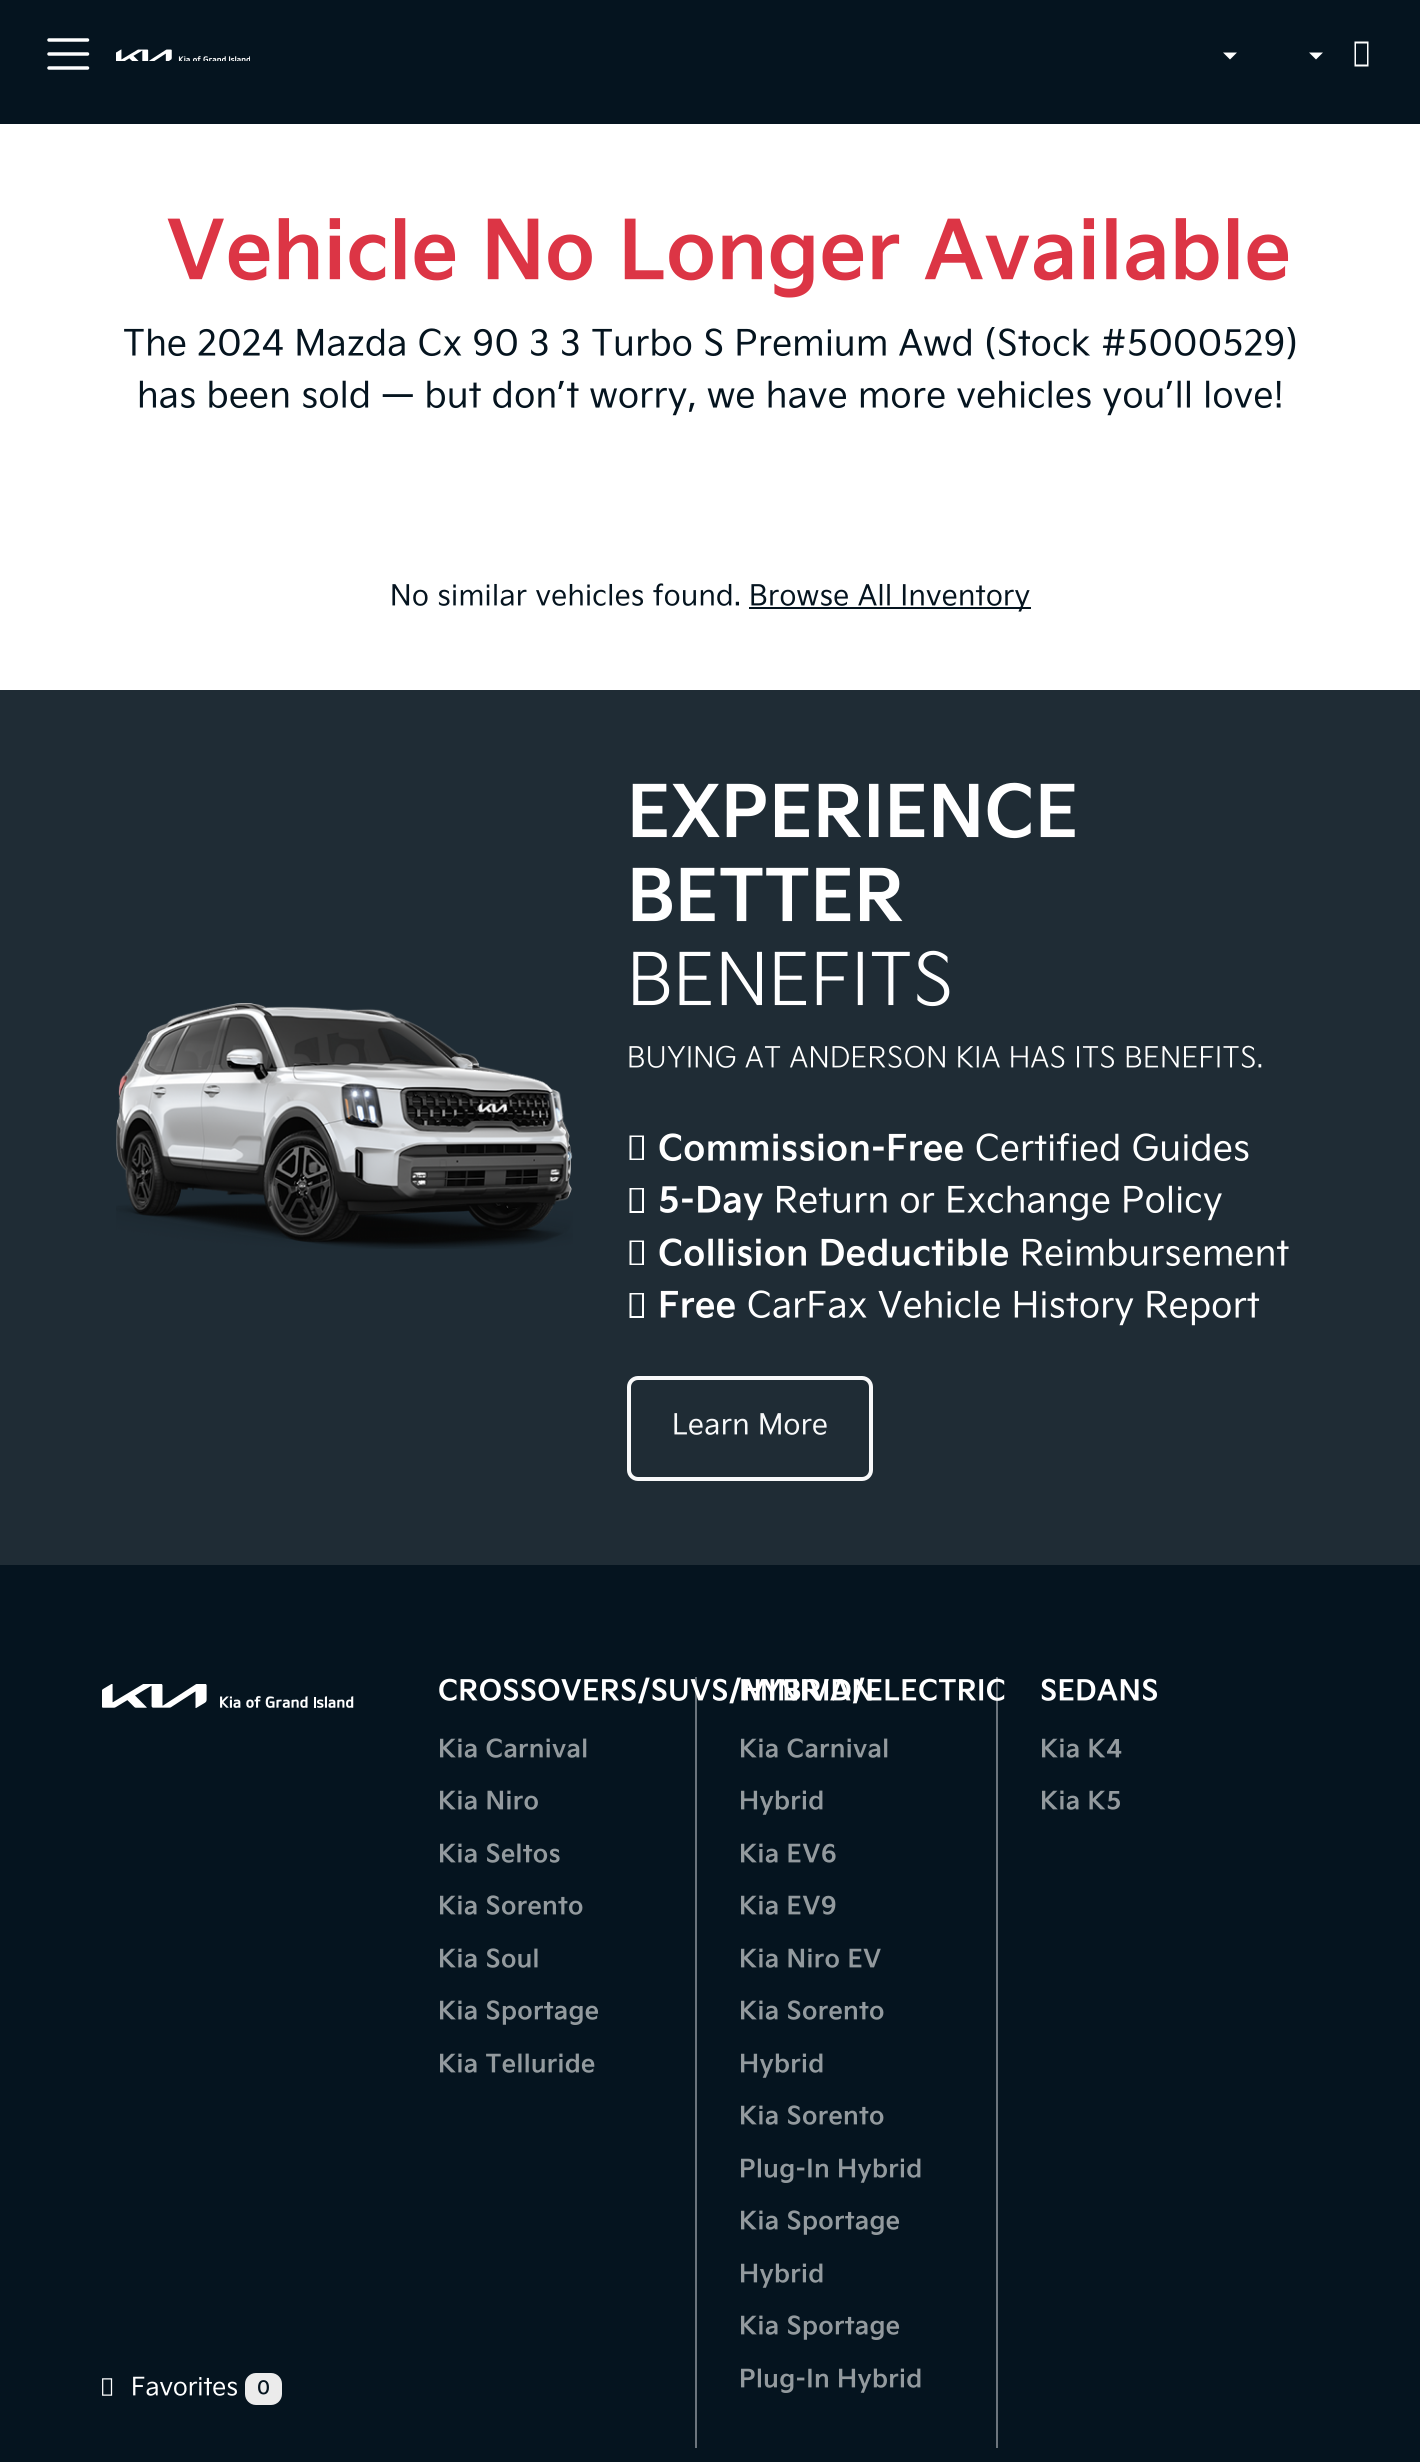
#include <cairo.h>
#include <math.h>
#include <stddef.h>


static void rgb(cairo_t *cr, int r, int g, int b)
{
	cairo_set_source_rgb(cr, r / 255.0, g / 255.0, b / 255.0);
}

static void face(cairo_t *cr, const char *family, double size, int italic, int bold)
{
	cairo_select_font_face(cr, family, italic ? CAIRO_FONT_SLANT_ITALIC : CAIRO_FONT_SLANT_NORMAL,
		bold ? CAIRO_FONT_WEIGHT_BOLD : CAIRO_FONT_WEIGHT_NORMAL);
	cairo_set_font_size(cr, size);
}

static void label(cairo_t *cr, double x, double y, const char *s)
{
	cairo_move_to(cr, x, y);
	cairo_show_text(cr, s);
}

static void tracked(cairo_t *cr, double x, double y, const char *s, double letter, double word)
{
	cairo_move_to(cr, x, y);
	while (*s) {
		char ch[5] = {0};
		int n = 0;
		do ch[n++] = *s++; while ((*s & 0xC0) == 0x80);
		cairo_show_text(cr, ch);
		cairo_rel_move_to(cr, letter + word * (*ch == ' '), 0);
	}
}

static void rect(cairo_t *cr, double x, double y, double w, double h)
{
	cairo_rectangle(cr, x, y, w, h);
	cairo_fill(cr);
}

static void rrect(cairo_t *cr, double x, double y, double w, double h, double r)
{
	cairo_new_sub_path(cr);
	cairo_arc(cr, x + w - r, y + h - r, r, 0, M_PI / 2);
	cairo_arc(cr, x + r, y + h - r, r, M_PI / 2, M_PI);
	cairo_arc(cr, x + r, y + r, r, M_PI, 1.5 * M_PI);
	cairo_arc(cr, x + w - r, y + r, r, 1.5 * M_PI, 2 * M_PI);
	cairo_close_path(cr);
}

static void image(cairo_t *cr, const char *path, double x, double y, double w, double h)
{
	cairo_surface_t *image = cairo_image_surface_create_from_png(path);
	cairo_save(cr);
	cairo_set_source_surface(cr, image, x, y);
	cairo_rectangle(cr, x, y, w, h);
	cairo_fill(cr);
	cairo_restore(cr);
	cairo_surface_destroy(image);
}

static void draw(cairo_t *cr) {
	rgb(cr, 255, 255, 255);
	cairo_paint(cr);
	rgb(cr, 5, 20, 31);
	rect(cr, 0, 0, 1420, 124);
	cairo_new_path(cr);
	cairo_move_to(cr, 49, 40);
	cairo_line_to(cr, 87.5, 40);
	cairo_move_to(cr, 49, 54);
	cairo_line_to(cr, 87.5, 54);
	cairo_move_to(cr, 49, 68);
	cairo_line_to(cr, 87.5, 68);
	rgb(cr, 255, 255, 255);
	cairo_set_line_width(cr, 3.5);
	cairo_set_line_cap(cr, CAIRO_LINE_CAP_ROUND);
	cairo_stroke(cr);
	image(cr, "image0.png", 116, 49, 134, 12);
	cairo_new_path(cr);
	cairo_move_to(cr, 1223, 52.5);
	cairo_line_to(cr, 1237, 52.5);
	cairo_line_to(cr, 1230, 59.5);
	cairo_close_path(cr);
	cairo_fill(cr);
	cairo_new_path(cr);
	cairo_move_to(cr, 1309, 52.5);
	cairo_line_to(cr, 1323, 52.5);
	cairo_line_to(cr, 1316, 59.5);
	cairo_close_path(cr);
	cairo_fill(cr);
	cairo_new_path(cr);
	cairo_move_to(cr, 1354.5, 66.5);
	cairo_line_to(cr, 1354.5, 41.5);
	cairo_line_to(cr, 1368.5, 41.5);
	cairo_line_to(cr, 1368.5, 66.5);
	cairo_close_path(cr);
	cairo_move_to(cr, 1356, 64.5);
	cairo_line_to(cr, 1367, 64.5);
	cairo_line_to(cr, 1367, 43.5);
	cairo_line_to(cr, 1356, 43.5);
	cairo_close_path(cr);
	cairo_fill(cr);
	face(cr, "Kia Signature", 79.7, 0, 1);
	rgb(cr, 220, 53, 69);
	tracked(cr, 166, 278, "Vehicle No Longer Available", 0.35, 0);
	face(cr, "Kia Signature", 35, 0, 0);
	rgb(cr, 5, 20, 31);
	tracked(cr, 123, 355, "The 2024 Mazda Cx 90 3 3 Turbo S Premium Awd (Stock #5000529)", 0.35, 0);
	tracked(cr, 137, 407, "has been sold — but don’t worry, we have more vehicles you’ll love!", 0.35, 0);
	face(cr, "Kia Signature", 28, 0, 0);
	tracked(cr, 390, 605, "No similar vehicles found.", 0.35, 0);
	rect(cr, 749, 607, 282, 2);
	tracked(cr, 749, 605, "Browse All Inventory", 0.35, 0);
	rgb(cr, 31, 44, 53);
	rect(cr, 0, 690, 1420, 875);
	image(cr, "image1.png", 116, 1003, 457, 246);
	face(cr, "Kia Signature", 70, 0, 1);
	rgb(cr, 255, 255, 255);
	tracked(cr, 627, 836, "EXPERIENCE", 0.35, 0);
	tracked(cr, 627, 920, "BETTER", 0.35, 0);
	face(cr, "Kia Signature Light", 70, 0, 0);
	tracked(cr, 627, 1004, "BENEFITS", 0.35, 0);
	face(cr, "Kia Signature Light", 28, 0, 0);
	tracked(cr, 627, 1067, "BUYING AT ANDERSON KIA HAS ITS BENEFITS.", 0.35, 0);
	cairo_new_path(cr);
	cairo_move_to(cr, 629.5, 1160);
	cairo_line_to(cr, 629.5, 1135.5);
	cairo_line_to(cr, 644, 1135.5);
	cairo_line_to(cr, 644, 1160);
	cairo_close_path(cr);
	cairo_move_to(cr, 631.5, 1158.5);
	cairo_line_to(cr, 642, 1158.5);
	cairo_line_to(cr, 642, 1137);
	cairo_line_to(cr, 631.5, 1137);
	cairo_close_path(cr);
	cairo_fill(cr);
	face(cr, "Kia Signature", 35, 0, 1);
	tracked(cr, 658, 1160, "Commission-Free", 0.35, 0);
	face(cr, "Kia Signature", 35, 0, 0);
	tracked(cr, 975, 1160, "Certified Guides", 0.35, 0);
	cairo_new_path(cr);
	cairo_move_to(cr, 629.5, 1213);
	cairo_line_to(cr, 629.5, 1188);
	cairo_line_to(cr, 644, 1188);
	cairo_line_to(cr, 644, 1213);
	cairo_close_path(cr);
	cairo_move_to(cr, 631.5, 1211);
	cairo_line_to(cr, 642, 1211);
	cairo_line_to(cr, 642, 1189.5);
	cairo_line_to(cr, 631.5, 1189.5);
	cairo_close_path(cr);
	cairo_fill(cr);
	face(cr, "Kia Signature", 35, 0, 1);
	tracked(cr, 658, 1212, "5-Day", 0.35, 0);
	face(cr, "Kia Signature", 35, 0, 0);
	tracked(cr, 774, 1212, "Return or Exchange Policy", 0.35, 0);
	cairo_new_path(cr);
	cairo_move_to(cr, 629.5, 1265);
	cairo_line_to(cr, 629.5, 1240.5);
	cairo_line_to(cr, 644, 1240.5);
	cairo_line_to(cr, 644, 1265);
	cairo_close_path(cr);
	cairo_move_to(cr, 631.5, 1263.5);
	cairo_line_to(cr, 642, 1263.5);
	cairo_line_to(cr, 642, 1242);
	cairo_line_to(cr, 631.5, 1242);
	cairo_close_path(cr);
	cairo_fill(cr);
	face(cr, "Kia Signature", 35, 0, 1);
	tracked(cr, 658, 1265, "Collision Deductible", 0.35, 0);
	face(cr, "Kia Signature", 35, 0, 0);
	tracked(cr, 1020, 1265, "Reimbursement", 0.35, 0);
	cairo_new_path(cr);
	cairo_move_to(cr, 629.5, 1318);
	cairo_line_to(cr, 629.5, 1293);
	cairo_line_to(cr, 644, 1293);
	cairo_line_to(cr, 644, 1318);
	cairo_close_path(cr);
	cairo_move_to(cr, 631.5, 1316);
	cairo_line_to(cr, 642, 1316);
	cairo_line_to(cr, 642, 1294.5);
	cairo_line_to(cr, 631.5, 1294.5);
	cairo_close_path(cr);
	cairo_fill(cr);
	face(cr, "Kia Signature", 35, 0, 1);
	tracked(cr, 658, 1317, "Free", 0.35, 0);
	face(cr, "Kia Signature", 35, 0, 0);
	tracked(cr, 747, 1317, "CarFax Vehicle History Report", 0.35, 0);
	rrect(cr, 629, 1378, 242, 101, 9);
	rgb(cr, 248, 249, 250);
	cairo_set_line_width(cr, 4);
	cairo_set_line_cap(cr, CAIRO_LINE_CAP_BUTT);
	cairo_stroke(cr);
	face(cr, "Kia Signature", 28, 0, 0);
	tracked(cr, 672, 1434, "Learn More", 0.35, 0);
	rgb(cr, 5, 20, 31);
	rect(cr, 0, 1565, 1420, 897);
	image(cr, "image2.png", 102, 2378, 11, 18);
	face(cr, "Kia Signature", 24.5, 0, 0);
	rgb(cr, 255, 255, 255);
	label(cr, 131, 2395, "Favorites");
	rgb(cr, 235, 235, 235);
	rrect(cr, 245, 2373, 37, 32, 11);
	cairo_fill(cr);
	face(cr, "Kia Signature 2", 18, 0, 1);
	rgb(cr, 5, 20, 31);
	label(cr, 257, 2394, "0");
	image(cr, "image3.png", 102, 1684, 252, 24);
	rgb(cr, 108, 117, 125);
	rect(cr, 695, 1677, 2, 771);
	face(cr, "Kia Signature", 28, 0, 1);
	rgb(cr, 255, 255, 255);
	tracked(cr, 438, 1700, "CROSSOVERS/SUVS/MINIVAN", 0.35, 0);
	face(cr, "Kia Signature", 24.5, 0, 1);
	rgb(cr, 147, 154, 158);
	tracked(cr, 438, 1757, "Kia Carnival", 0.35, 0);
	tracked(cr, 438, 1809, "Kia Niro", 0.35, 0);
	tracked(cr, 438, 1862, "Kia Seltos", 0.35, 0);
	tracked(cr, 438, 1914, "Kia Sorento", 0.35, 0);
	tracked(cr, 438, 1967, "Kia Soul", 0.35, 0);
	tracked(cr, 438, 2019, "Kia Sportage", 0.35, 0);
	tracked(cr, 438, 2072, "Kia Telluride", 0.35, 0);
	rgb(cr, 108, 117, 125);
	rect(cr, 996, 1677, 2, 771);
	face(cr, "Kia Signature", 28, 0, 1);
	rgb(cr, 255, 255, 255);
	tracked(cr, 739, 1700, "HYBRID/ELECTRIC", 0.35, 0);
	face(cr, "Kia Signature", 24.5, 0, 1);
	rgb(cr, 147, 154, 158);
	tracked(cr, 739, 1757, "Kia Carnival", 0.35, 0);
	tracked(cr, 739, 1809, "Hybrid", 0.35, 0);
	tracked(cr, 739, 1862, "Kia EV6", 0.35, 0);
	tracked(cr, 739, 1914, "Kia EV9", 0.35, 0);
	tracked(cr, 739, 1967, "Kia Niro EV", 0.35, 0);
	tracked(cr, 739, 2019, "Kia Sorento", 0.35, 0);
	tracked(cr, 739, 2072, "Hybrid", 0.35, 0);
	tracked(cr, 739, 2124, "Kia Sorento", 0.35, 0);
	tracked(cr, 739, 2177, "Plug-In Hybrid", 0.35, 0);
	tracked(cr, 739, 2229, "Kia Sportage", 0.35, 0);
	tracked(cr, 739, 2282, "Hybrid", 0.35, 0);
	tracked(cr, 739, 2334, "Kia Sportage", 0.35, 0);
	tracked(cr, 739, 2387, "Plug-In Hybrid", 0.35, 0);
	face(cr, "Kia Signature", 28, 0, 1);
	rgb(cr, 255, 255, 255);
	tracked(cr, 1040, 1700, "SEDANS", 0.35, 0);
	face(cr, "Kia Signature", 24.5, 0, 1);
	rgb(cr, 147, 154, 158);
	tracked(cr, 1040, 1757, "Kia K4", 0.35, 0);
	tracked(cr, 1040, 1809, "Kia K5", 0.35, 0);
}

int main(void) {
	cairo_surface_t *surface = cairo_image_surface_create(CAIRO_FORMAT_RGB24, 1420, 2462);
	cairo_t *cr = cairo_create(surface);
	cairo_font_options_t *options = cairo_font_options_create();
	cairo_font_options_set_hint_metrics(options, CAIRO_HINT_METRICS_OFF);
	cairo_font_options_set_hint_style(options, CAIRO_HINT_STYLE_NONE);
	cairo_set_font_options(cr, options);
	cairo_set_miter_limit(cr, 4);
	draw(cr);
	cairo_surface_write_to_png(surface, "render.png");
	cairo_font_options_destroy(options);
	cairo_destroy(cr);
	cairo_surface_destroy(surface);
	return 0;
}
